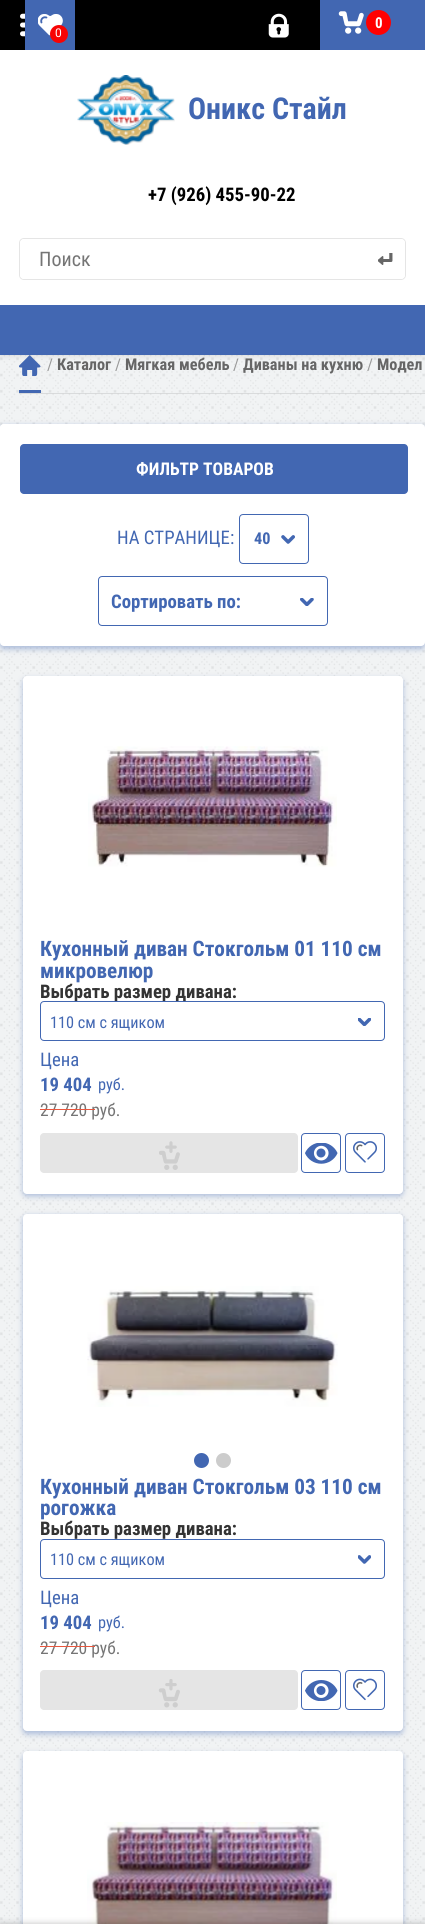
#include <cairo.h>
#include <math.h>
#include <stddef.h>


static void rgb(cairo_t *cr, int r, int g, int b)
{
	cairo_set_source_rgb(cr, r / 255.0, g / 255.0, b / 255.0);
}

static void face(cairo_t *cr, const char *family, double size, int italic, int bold)
{
	cairo_select_font_face(cr, family, italic ? CAIRO_FONT_SLANT_ITALIC : CAIRO_FONT_SLANT_NORMAL,
		bold ? CAIRO_FONT_WEIGHT_BOLD : CAIRO_FONT_WEIGHT_NORMAL);
	cairo_set_font_size(cr, size);
}

static void label(cairo_t *cr, double x, double y, const char *s)
{
	cairo_move_to(cr, x, y);
	cairo_show_text(cr, s);
}

static void rect(cairo_t *cr, double x, double y, double w, double h)
{
	cairo_rectangle(cr, x, y, w, h);
	cairo_fill(cr);
}

static void rrect(cairo_t *cr, double x, double y, double w, double h, double r)
{
	cairo_new_sub_path(cr);
	cairo_arc(cr, x + w - r, y + h - r, r, 0, M_PI / 2);
	cairo_arc(cr, x + r, y + h - r, r, M_PI / 2, M_PI);
	cairo_arc(cr, x + r, y + r, r, M_PI, 1.5 * M_PI);
	cairo_arc(cr, x + w - r, y + r, r, 1.5 * M_PI, 2 * M_PI);
	cairo_close_path(cr);
}

static void soft_shadow(cairo_t *cr, double x, double y, double w, double h, double r, double blur, double alpha)
{
	cairo_push_group_with_content(cr, CAIRO_CONTENT_ALPHA);
	cairo_set_operator(cr, CAIRO_OPERATOR_SOURCE);
	for (int i = 15; i >= -15 && fmin(w, h) + blur * i / 3 > 0; i -= 2) {
		double e = blur * i / 6;
		cairo_set_source_rgba(cr, 0, 0, 0, alpha * erfc((i - 1) / 8.5) / 2);
		rrect(cr, x - e, y - e, w + 2 * e, h + 2 * e, fmax(0, fmin(r + e + blur * .6, fmin(w, h) / 2 + e)));
		cairo_fill(cr);
	}
	cairo_pattern_t *soft = cairo_pop_group(cr);
	cairo_mask(cr, soft);
	cairo_pattern_destroy(soft);
}

static void image(cairo_t *cr, const char *path, double x, double y, double w, double h)
{
	cairo_surface_t *image = cairo_image_surface_create_from_png(path);
	cairo_save(cr);
	cairo_set_source_surface(cr, image, x, y);
	cairo_rectangle(cr, x, y, w, h);
	cairo_fill(cr);
	cairo_restore(cr);
	cairo_surface_destroy(image);
}

static void draw(cairo_t *cr) {
	rgb(cr, 241, 243, 244);
	cairo_paint(cr);
	image(cr, "image0.png", 0, 355, 425, 1569);
	rgb(cr, 0, 0, 0);
	soft_shadow(cr, 0, 51, 425, 305, 0, 3, 0.1);
	rgb(cr, 0, 0, 0);
	rect(cr, 0, 0, 320, 50);
	image(cr, "image1.png", 20, 13, 5, 24);
	image(cr, "image2.png", 268, 13, 21, 25);
	rgb(cr, 66, 103, 178);
	rect(cr, 320, 0, 105, 50);
	image(cr, "image3.png", 338, 11, 26, 23);
	rgb(cr, 255, 0, 0);
	cairo_arc(cr, 378.5, 22.5, 12.5, 0, 2 * M_PI);
	cairo_fill(cr);
	face(cr, "Roboto Condensed", 15, 0, 1);
	rgb(cr, 255, 255, 255);
	label(cr, 375, 28, "0");
	rgb(cr, 66, 103, 178);
	rect(cr, 25, 0, 50, 50);
	image(cr, "image4.png", 38, 14, 25, 22);
	rgb(cr, 248, 3, 3);
	cairo_arc(cr, 59, 34, 9, 0, 2 * M_PI);
	cairo_fill(cr);
	face(cr, "Roboto", 12, 0, 0);
	rgb(cr, 255, 255, 255);
	label(cr, 55, 37, "0");
	rect(cr, 0, 50, 425, 255);
	image(cr, "image5.png", 77, 75, 98, 70);
	face(cr, "Roboto Condensed", 30, 0, 1);
	rgb(cr, 66, 103, 178);
	label(cr, 188, 119, "Оникс Стайл");
	face(cr, "Roboto Condensed", 18.75, 0, 1);
	rgb(cr, 0, 0, 0);
	label(cr, 148, 201, "+7 (926) 455-90-22");
	rrect(cr, 19.5, 238.5, 386, 41, 4.5);
	rgb(cr, 229, 229, 229);
	cairo_set_line_width(cr, 1);
	cairo_stroke(cr);
	rgb(cr, 255, 255, 255);
	rrect(cr, 20, 239, 385, 40, 4);
	cairo_fill(cr);
	image(cr, "image6.png", 378, 253, 15, 12);
	face(cr, "Roboto Condensed", 20, 0, 0);
	rgb(cr, 117, 117, 117);
	label(cr, 39, 266, "Поиск");
	rgb(cr, 66, 103, 178);
	rect(cr, 0, 305, 425, 50);
	cairo_set_source_rgba(cr, 0, 0, 0, 0.1);
	rect(cr, 19, 393, 406, 1);
	image(cr, "image7.png", 19, 355, 22, 21);
	face(cr, "Roboto Condensed", 16.25, 0, 0);
	rgb(cr, 153, 153, 153);
	label(cr, 47, 370, "/");
	face(cr, "Roboto Condensed", 16.25, 0, 1);
	rgb(cr, 102, 102, 102);
	label(cr, 57, 370, "Каталог");
	face(cr, "Roboto Condensed", 16.25, 0, 0);
	rgb(cr, 153, 153, 153);
	label(cr, 115, 370, "/");
	face(cr, "Roboto Condensed", 16.25, 0, 1);
	rgb(cr, 102, 102, 102);
	label(cr, 125, 370, "Мягкая мебель");
	face(cr, "Roboto Condensed", 16.25, 0, 0);
	rgb(cr, 153, 153, 153);
	label(cr, 233, 370, "/");
	face(cr, "Roboto Condensed", 16.25, 0, 1);
	rgb(cr, 102, 102, 102);
	label(cr, 243, 370, "Диваны на кухню");
	face(cr, "Roboto Condensed", 16.25, 0, 0);
	rgb(cr, 153, 153, 153);
	label(cr, 367, 370, "/");
	face(cr, "Roboto Condensed", 16.25, 0, 1);
	rgb(cr, 102, 102, 102);
	label(cr, 377, 370, "Модел");
	rgb(cr, 66, 103, 178);
	rect(cr, 19, 390, 22, 3);
	rgb(cr, 66, 103, 178);
	soft_shadow(cr, 0, 426, 425, 223, 4, 3, 0.4);
	rgb(cr, 255, 255, 255);
	rrect(cr, 0, 424, 425, 222, 4);
	cairo_fill(cr);
	rrect(cr, 0, 424, 408, 90, 4);
	cairo_fill(cr);
	rgb(cr, 66, 103, 178);
	rrect(cr, 20, 444, 388, 50, 4);
	cairo_fill(cr);
	face(cr, "Roboto Condensed", 17.5, 0, 1);
	rgb(cr, 255, 255, 255);
	label(cr, 136, 475, "ФИЛЬТР ТОВАРОВ");
	face(cr, "Roboto Condensed", 18.75, 0, 0);
	rgb(cr, 66, 103, 178);
	label(cr, 117, 544, "НА СТРАНИЦЕ:");
	rrect(cr, 239.5, 514.5, 69, 49, 3.5);
	cairo_stroke(cr);
	face(cr, "Roboto Condensed", 16.25, 0, 1);
	label(cr, 254, 544, "40");
	image(cr, "image8.png", 281, 535, 14, 9);
	rrect(cr, 98.5, 576.5, 229, 49, 3.5);
	cairo_stroke(cr);
	face(cr, "Roboto Condensed", 18.75, 0, 1);
	label(cr, 111, 608, "Сортировать по:");
	image(cr, "image9.png", 300, 598, 14, 8);
	rgb(cr, 66, 103, 178);
	soft_shadow(cr, 23, 679, 380, 517, 4, 3, 0.4);
	rgb(cr, 255, 255, 255);
	rrect(cr, 23, 676, 380, 518, 4);
	cairo_fill(cr);
	image(cr, "image10.png", 88, 746, 249, 121);
	face(cr, "Roboto Condensed", 21.25, 0, 1);
	rgb(cr, 66, 103, 178);
	label(cr, 40, 956, "Кухонный диван Стокгольм 01 110 см");
	label(cr, 40, 978, "микровелюр");
	face(cr, "Roboto Condensed", 18.75, 0, 1);
	rgb(cr, 51, 51, 51);
	label(cr, 40, 998, "Выбрать размер дивана:");
	rrect(cr, 40.5, 1001.5, 344, 39, 3.5);
	rgb(cr, 66, 103, 178);
	cairo_stroke(cr);
	face(cr, "Roboto Condensed", 16.25, 0, 0);
	label(cr, 50, 1028, "110 см с ящиком");
	image(cr, "image11.png", 358, 1018, 13, 8);
	face(cr, "Roboto Condensed", 18.75, 0, 0);
	label(cr, 40, 1066, "Цена");
	face(cr, "Roboto Condensed", 18.75, 0, 1);
	label(cr, 40, 1091, "19 404");
	face(cr, "Roboto Condensed", 16.25, 0, 0);
	label(cr, 98, 1090, "руб.");
	face(cr, "Roboto Condensed", 17.5, 0, 0);
	rgb(cr, 117, 117, 117);
	label(cr, 40, 1116, "27 720 руб.");
	rgb(cr, 233, 87, 62);
	rect(cr, 40, 1109, 55, 1);
	rgb(cr, 229, 229, 229);
	rrect(cr, 40, 1133, 258, 40, 4);
	cairo_fill(cr);
	image(cr, "image12.png", 159, 1141, 21, 29);
	rrect(cr, 301.5, 1133.5, 39, 39, 3.5);
	rgb(cr, 66, 103, 178);
	cairo_stroke(cr);
	image(cr, "image13.png", 305, 1143, 33, 21);
	rrect(cr, 345.5, 1133.5, 39, 39, 3.5);
	cairo_stroke(cr);
	image(cr, "image14.png", 353, 1141, 24, 22);
	rgb(cr, 66, 103, 178);
	soft_shadow(cr, 23, 1216, 380, 518, 4, 3, 0.4);
	rgb(cr, 255, 255, 255);
	rrect(cr, 23, 1214, 380, 517, 4);
	cairo_fill(cr);
	image(cr, "image15.png", 87, 1286, 251, 121);
	rgb(cr, 66, 103, 178);
	cairo_arc(cr, 201.5, 1460.5, 7.5, 0, 2 * M_PI);
	cairo_fill(cr);
	rgb(cr, 204, 204, 204);
	cairo_arc(cr, 223.5, 1460.5, 7.5, 0, 2 * M_PI);
	cairo_fill(cr);
	face(cr, "Roboto Condensed", 21.25, 0, 1);
	rgb(cr, 66, 103, 178);
	label(cr, 40, 1494, "Кухонный диван Стокгольм 03 110 см");
	label(cr, 40, 1515, "рогожка");
	face(cr, "Roboto Condensed", 18.75, 0, 1);
	rgb(cr, 51, 51, 51);
	label(cr, 40, 1535, "Выбрать размер дивана:");
	rrect(cr, 40.5, 1539.5, 344, 39, 3.5);
	rgb(cr, 66, 103, 178);
	cairo_stroke(cr);
	face(cr, "Roboto Condensed", 16.25, 0, 0);
	label(cr, 50, 1565, "110 см с ящиком");
	image(cr, "image16.png", 358, 1555, 13, 9);
	face(cr, "Roboto Condensed", 18.75, 0, 0);
	label(cr, 40, 1604, "Цена");
	face(cr, "Roboto Condensed", 18.75, 0, 1);
	label(cr, 40, 1629, "19 404");
	face(cr, "Roboto Condensed", 16.25, 0, 0);
	label(cr, 98, 1628, "руб.");
	face(cr, "Roboto Condensed", 17.5, 0, 0);
	rgb(cr, 117, 117, 117);
	label(cr, 40, 1654, "27 720 руб.");
	rgb(cr, 233, 87, 62);
	rect(cr, 40, 1646, 55, 1);
	rgb(cr, 229, 229, 229);
	rrect(cr, 40, 1670, 258, 40, 4);
	cairo_fill(cr);
	image(cr, "image17.png", 158, 1679, 22, 29);
	rrect(cr, 301.5, 1670.5, 39, 39, 3.5);
	rgb(cr, 66, 103, 178);
	cairo_stroke(cr);
	image(cr, "image18.png", 305, 1680, 33, 21);
	rrect(cr, 345.5, 1670.5, 39, 39, 3.5);
	cairo_stroke(cr);
	image(cr, "image19.png", 353, 1678, 24, 23);
	rgb(cr, 66, 103, 178);
	soft_shadow(cr, 23, 1754, 380, 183, 4, 3, 0.4);
	rgb(cr, 255, 255, 255);
	rrect(cr, 23, 1751, 380, 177, 4);
	cairo_fill(cr);
	image(cr, "image20.png", 87, 1822, 250, 102);
	rgb(cr, 0, 0, 0);
	soft_shadow(cr, 0, 1923, 425, 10, 0, 3, 0.2);
}

int main(void) {
	cairo_surface_t *surface = cairo_image_surface_create(CAIRO_FORMAT_RGB24, 425, 1924);
	cairo_t *cr = cairo_create(surface);
	cairo_font_options_t *options = cairo_font_options_create();
	cairo_font_options_set_hint_metrics(options, CAIRO_HINT_METRICS_OFF);
	cairo_font_options_set_hint_style(options, CAIRO_HINT_STYLE_NONE);
	cairo_set_font_options(cr, options);
	cairo_set_miter_limit(cr, 4);
	draw(cr);
	cairo_surface_write_to_png(surface, "render.png");
	cairo_font_options_destroy(options);
	cairo_destroy(cr);
	cairo_surface_destroy(surface);
	return 0;
}
